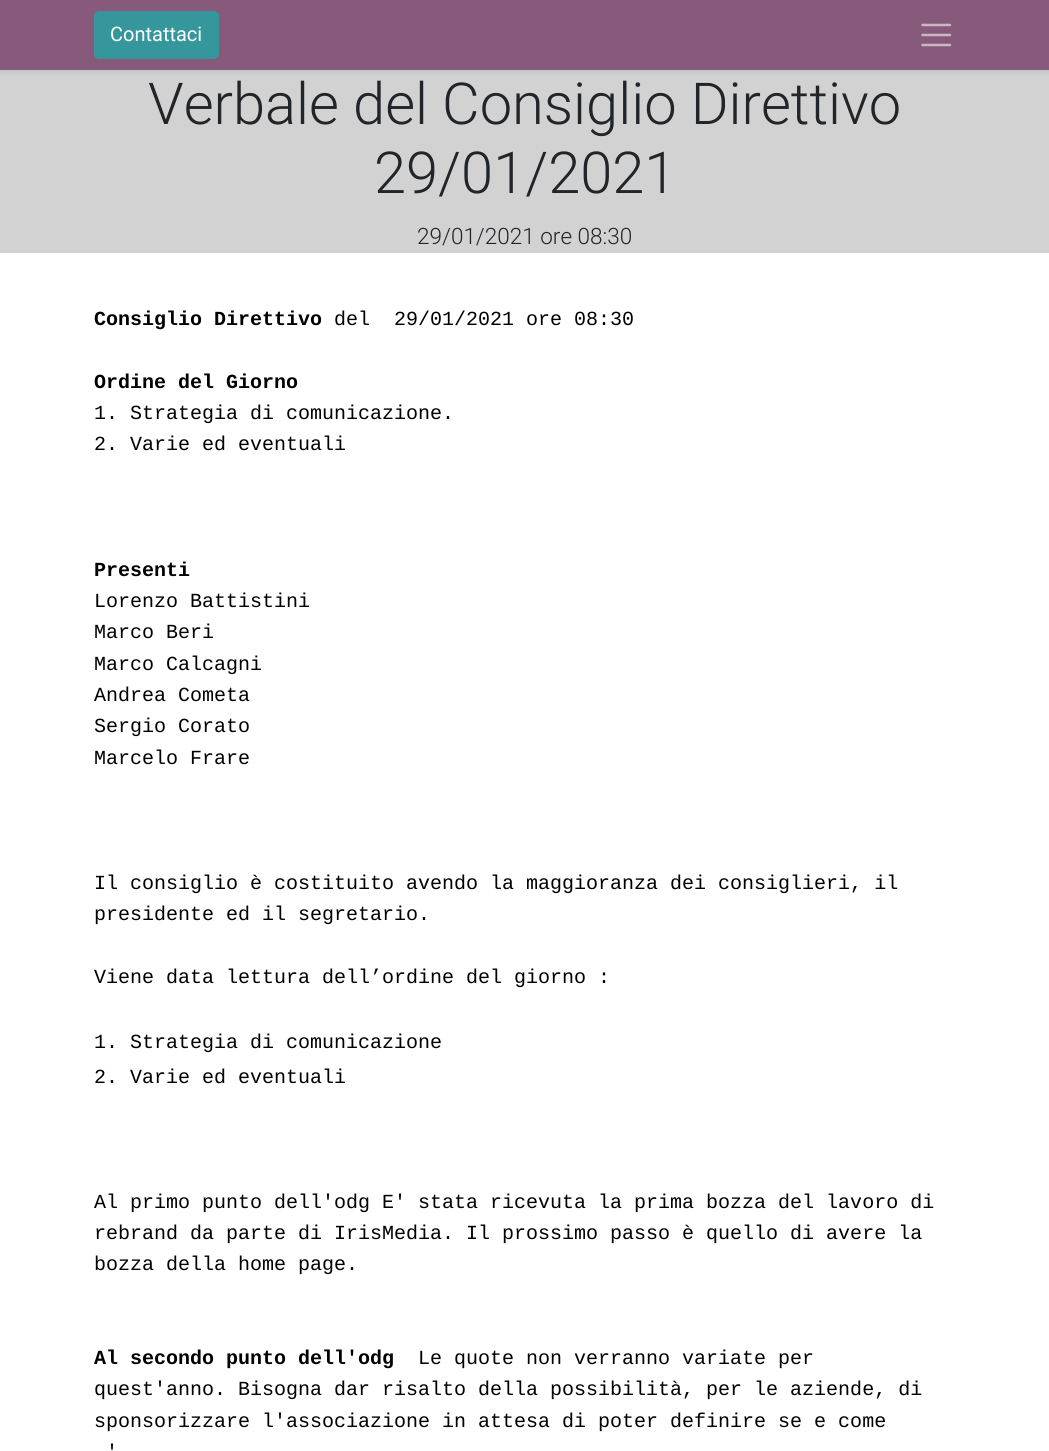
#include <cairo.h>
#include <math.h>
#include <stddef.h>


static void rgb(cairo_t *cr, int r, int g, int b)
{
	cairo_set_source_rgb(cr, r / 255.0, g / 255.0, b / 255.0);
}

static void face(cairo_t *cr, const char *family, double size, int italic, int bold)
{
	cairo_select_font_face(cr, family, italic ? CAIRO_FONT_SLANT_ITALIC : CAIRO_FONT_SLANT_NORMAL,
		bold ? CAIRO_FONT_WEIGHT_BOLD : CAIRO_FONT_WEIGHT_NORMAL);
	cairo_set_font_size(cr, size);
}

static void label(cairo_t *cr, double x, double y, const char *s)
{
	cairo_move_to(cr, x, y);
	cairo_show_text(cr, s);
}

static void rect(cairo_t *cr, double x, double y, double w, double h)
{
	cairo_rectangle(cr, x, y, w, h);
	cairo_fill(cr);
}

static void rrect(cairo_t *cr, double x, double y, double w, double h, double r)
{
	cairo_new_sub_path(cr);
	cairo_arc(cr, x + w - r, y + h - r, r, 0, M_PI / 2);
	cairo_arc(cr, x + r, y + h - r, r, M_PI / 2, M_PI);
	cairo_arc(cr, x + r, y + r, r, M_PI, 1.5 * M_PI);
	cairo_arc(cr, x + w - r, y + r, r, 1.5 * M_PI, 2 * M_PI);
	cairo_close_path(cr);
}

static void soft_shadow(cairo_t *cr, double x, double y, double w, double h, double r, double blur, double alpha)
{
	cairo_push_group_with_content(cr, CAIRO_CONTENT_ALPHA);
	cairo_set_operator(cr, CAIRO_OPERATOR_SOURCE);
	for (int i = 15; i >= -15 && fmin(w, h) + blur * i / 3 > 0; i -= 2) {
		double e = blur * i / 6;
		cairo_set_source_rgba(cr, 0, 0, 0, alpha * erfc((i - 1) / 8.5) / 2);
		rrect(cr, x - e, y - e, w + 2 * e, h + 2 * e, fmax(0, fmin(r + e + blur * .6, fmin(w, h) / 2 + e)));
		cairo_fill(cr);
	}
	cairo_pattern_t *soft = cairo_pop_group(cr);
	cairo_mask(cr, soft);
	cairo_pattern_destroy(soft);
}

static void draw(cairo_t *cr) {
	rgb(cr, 255, 255, 255);
	cairo_paint(cr);
	rgb(cr, 210, 210, 210);
	rect(cr, 0, 70, 1049, 183);
	rgb(cr, 0, 0, 0);
	soft_shadow(cr, 0, 3, 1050, 70, 0, 2.5, 0.07);
	rgb(cr, 135, 90, 123);
	rect(cr, 0, 0, 1049, 70);
	rgb(cr, 53, 151, 156);
	rrect(cr, 94.5, 11.5, 124, 47, 4.5);
	cairo_fill_preserve(cr);
	cairo_set_line_width(cr, 1);
	cairo_stroke(cr);
	face(cr, "Roboto", 20, 0, 0);
	rgb(cr, 255, 255, 255);
	label(cr, 110, 41, "Contattaci");
	cairo_new_path(cr);
	cairo_move_to(cr, 922.5, 25);
	cairo_line_to(cr, 950, 25);
	cairo_move_to(cr, 922.5, 35);
	cairo_line_to(cr, 950, 35);
	cairo_move_to(cr, 922.5, 45);
	cairo_line_to(cr, 950, 45);
	rgb(cr, 201, 181, 196);
	cairo_set_line_width(cr, 2.5);
	cairo_set_line_cap(cr, CAIRO_LINE_CAP_ROUND);
	cairo_stroke(cr);
	face(cr, "Roboto Light", 57.8, 0, 0);
	rgb(cr, 33, 37, 41);
	label(cr, 148, 124, "Verbale del Consiglio Direttivo");
	label(cr, 374, 193, "29/01/2021");
	face(cr, "Roboto Light", 22.5, 0, 0);
	label(cr, 417, 244, "29/01/2021 ore 08:30");
	face(cr, "Liberation Mono", 20, 0, 1);
	rgb(cr, 0, 0, 0);
	label(cr, 94, 325, "Consiglio Direttivo");
	face(cr, "Liberation Mono", 20, 0, 0);
	label(cr, 334, 325, "del  29/01/2021 ore 08:30");
	face(cr, "Liberation Mono", 20, 0, 1);
	label(cr, 94, 388, "Ordine del Giorno");
	face(cr, "Liberation Mono", 20, 0, 0);
	label(cr, 94, 419, "1. Strategia di comunicazione.");
	label(cr, 94, 450, "2. Varie ed eventuali");
	face(cr, "Liberation Mono", 20, 0, 1);
	label(cr, 94, 576, "Presenti");
	face(cr, "Liberation Mono", 20, 0, 0);
	label(cr, 94, 607, "Lorenzo Battistini");
	label(cr, 94, 638, "Marco Beri");
	label(cr, 94, 670, "Marco Calcagni");
	label(cr, 94, 701, "Andrea Cometa");
	label(cr, 94, 732, "Sergio Corato");
	label(cr, 94, 764, "Marcelo Frare");
	label(cr, 94, 889, "Il consiglio è costituito avendo la maggioranza dei consiglieri, il");
	label(cr, 94, 920, "presidente ed il segretario.");
	label(cr, 94, 983, "Viene data lettura dell’ordine del giorno :");
	label(cr, 94, 1048, "1. Strategia di comunicazione");
	label(cr, 94, 1083, "2. Varie ed eventuali");
	label(cr, 94, 1208, "Al primo punto dell'odg E' stata ricevuta la prima bozza del lavoro di");
	label(cr, 94, 1239, "rebrand da parte di IrisMedia. Il prossimo passo è quello di avere la");
	label(cr, 94, 1270, "bozza della home page.");
	face(cr, "Liberation Mono", 20, 0, 1);
	label(cr, 94, 1364, "Al secondo punto dell'odg");
	face(cr, "Liberation Mono", 20, 0, 0);
	label(cr, 418, 1364, "Le quote non verranno variate per");
	label(cr, 94, 1395, "quest'anno. Bisogna dar risalto della possibilità, per le aziende, di");
	label(cr, 94, 1427, "sponsorizzare l'associazione in attesa di poter definire se e come");
	label(cr, 106, 1458, "'");
}

int main(void) {
	cairo_surface_t *surface = cairo_image_surface_create(CAIRO_FORMAT_RGB24, 1049, 1451);
	cairo_t *cr = cairo_create(surface);
	cairo_font_options_t *options = cairo_font_options_create();
	cairo_font_options_set_hint_metrics(options, CAIRO_HINT_METRICS_OFF);
	cairo_font_options_set_hint_style(options, CAIRO_HINT_STYLE_NONE);
	cairo_set_font_options(cr, options);
	cairo_set_miter_limit(cr, 4);
	draw(cr);
	cairo_surface_write_to_png(surface, "render.png");
	cairo_font_options_destroy(options);
	cairo_destroy(cr);
	cairo_surface_destroy(surface);
	return 0;
}
